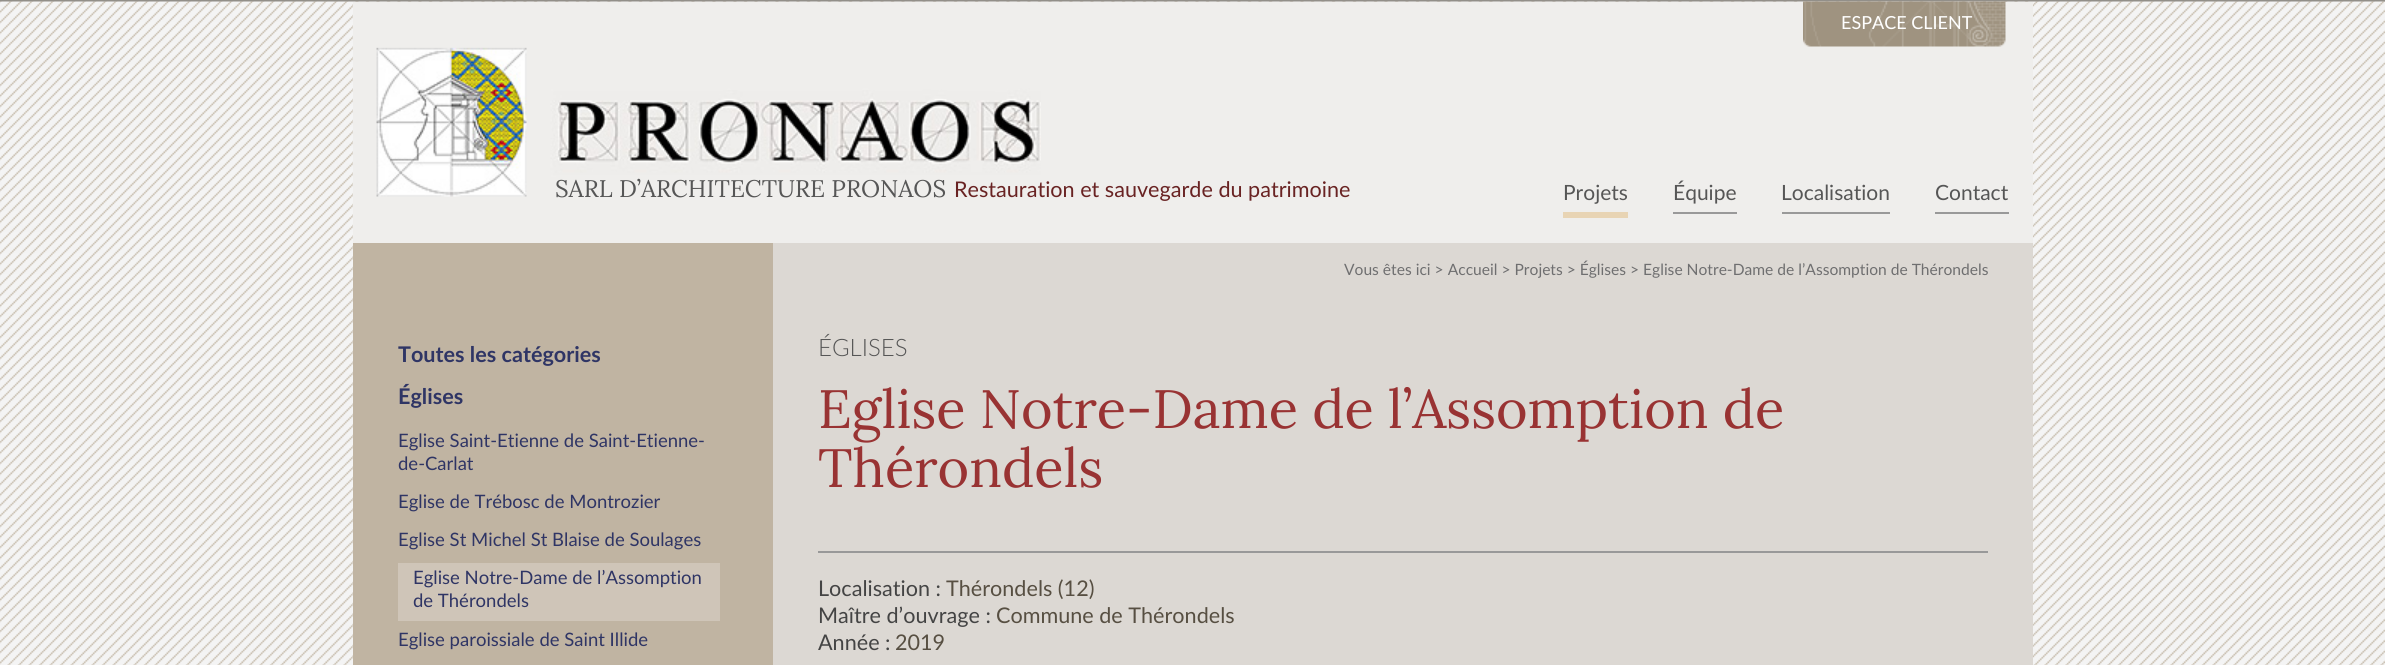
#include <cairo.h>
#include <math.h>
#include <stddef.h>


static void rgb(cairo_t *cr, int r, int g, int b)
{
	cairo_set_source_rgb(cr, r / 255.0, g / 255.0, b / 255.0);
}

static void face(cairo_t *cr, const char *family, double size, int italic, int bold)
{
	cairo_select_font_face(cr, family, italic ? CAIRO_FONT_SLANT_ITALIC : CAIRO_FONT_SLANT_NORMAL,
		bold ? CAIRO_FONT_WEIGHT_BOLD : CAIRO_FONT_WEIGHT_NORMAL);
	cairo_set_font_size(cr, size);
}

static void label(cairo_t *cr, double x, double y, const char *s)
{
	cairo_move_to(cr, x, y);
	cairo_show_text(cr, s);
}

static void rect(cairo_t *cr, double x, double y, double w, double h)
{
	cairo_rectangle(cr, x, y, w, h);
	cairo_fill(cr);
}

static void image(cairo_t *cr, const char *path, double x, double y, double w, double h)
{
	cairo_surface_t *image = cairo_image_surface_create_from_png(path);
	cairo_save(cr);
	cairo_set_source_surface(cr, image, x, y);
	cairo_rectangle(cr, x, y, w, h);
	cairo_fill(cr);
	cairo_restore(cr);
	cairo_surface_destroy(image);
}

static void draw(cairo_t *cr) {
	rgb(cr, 146, 143, 137);
	cairo_paint(cr);
	image(cr, "image0.png", 0, 1, 2385, 664);
	rgb(cr, 239, 238, 236);
	rect(cr, 353, 2, 1680, 241);
	image(cr, "image1.png", 1803, 1, 203, 46);
	face(cr, "Lato", 18, 0, 0);
	rgb(cr, 255, 255, 255);
	label(cr, 1841, 29, "ESPACE CLIENT");
	image(cr, "image2.png", 376, 47, 665, 150);
	face(cr, "Lora", 24, 0, 0);
	rgb(cr, 86, 86, 86);
	label(cr, 555, 197, "SARL D’ARCHITECTURE PRONAOS");
	face(cr, "Lato", 21.6, 0, 0);
	rgb(cr, 105, 35, 35);
	label(cr, 954, 197, "Restauration et sauvegarde du patrimoine");
	face(cr, "Lato", 21, 0, 0);
	rgb(cr, 86, 86, 86);
	label(cr, 1563, 200, "Projets");
	rgb(cr, 232, 212, 180);
	rect(cr, 1563, 212, 65, 6);
	rgb(cr, 86, 86, 86);
	label(cr, 1673, 200, "Équipe");
	rgb(cr, 153, 153, 153);
	rect(cr, 1673, 212, 64, 2);
	rgb(cr, 86, 86, 86);
	label(cr, 1781, 200, "Localisation");
	rgb(cr, 153, 153, 153);
	rect(cr, 1782, 212, 108, 2);
	rgb(cr, 86, 86, 86);
	label(cr, 1935, 200, "Contact");
	rgb(cr, 153, 153, 153);
	rect(cr, 1935, 212, 74, 2);
	rgb(cr, 192, 180, 162);
	rect(cr, 353, 243, 420, 422);
	face(cr, "Lato", 21.6, 0, 1);
	rgb(cr, 47, 53, 101);
	label(cr, 398, 362, "Toutes les catégories");
	label(cr, 398, 404, "Églises");
	face(cr, "Lato", 18.5, 0, 0);
	label(cr, 398, 447, "Eglise Saint-Etienne de Saint-Etienne-");
	label(cr, 398, 470, "de-Carlat");
	label(cr, 398, 508, "Eglise de Trébosc de Montrozier");
	label(cr, 398, 546, "Eglise St Michel St Blaise de Soulages");
	rgb(cr, 207, 197, 184);
	rect(cr, 398, 563, 322, 58);
	rgb(cr, 47, 53, 101);
	label(cr, 413, 584, "Eglise Notre-Dame de l’Assomption");
	label(cr, 413, 607, "de Thérondels");
	label(cr, 398, 646, "Eglise paroissiale de Saint Illide");
	rgb(cr, 220, 216, 211);
	rect(cr, 773, 243, 1260, 422);
	face(cr, "Lato", 15.6, 0, 0);
	rgb(cr, 111, 111, 112);
	label(cr, 1344, 275, "Vous êtes ici > Accueil > Projets > Églises > Eglise Notre-Dame de l’Assomption de Thérondels");
	face(cr, "Lato Light", 24, 0, 0);
	rgb(cr, 86, 86, 86);
	label(cr, 818, 356, "ÉGLISES");
	face(cr, "Lora", 54, 0, 0);
	rgb(cr, 153, 51, 51);
	label(cr, 818, 428, "Eglise Notre-Dame de l’Assomption de");
	label(cr, 818, 487, "Thérondels");
	rgb(cr, 153, 153, 153);
	rect(cr, 818, 551, 1170, 2);
	face(cr, "Lato", 21.6, 0, 0);
	rgb(cr, 68, 68, 68);
	label(cr, 818, 596, "Localisation :");
	rgb(cr, 87, 79, 66);
	label(cr, 946, 596, "Thérondels (12)");
	rgb(cr, 68, 68, 68);
	label(cr, 818, 623, "Maître d’ouvrage :");
	rgb(cr, 87, 79, 66);
	label(cr, 996, 623, "Commune de Thérondels");
	rgb(cr, 68, 68, 68);
	label(cr, 818, 650, "Année :");
	rgb(cr, 87, 79, 66);
	label(cr, 895, 650, "2019");
}

int main(void) {
	cairo_surface_t *surface = cairo_image_surface_create(CAIRO_FORMAT_RGB24, 2385, 665);
	cairo_t *cr = cairo_create(surface);
	cairo_font_options_t *options = cairo_font_options_create();
	cairo_font_options_set_hint_metrics(options, CAIRO_HINT_METRICS_OFF);
	cairo_font_options_set_hint_style(options, CAIRO_HINT_STYLE_NONE);
	cairo_set_font_options(cr, options);
	cairo_set_miter_limit(cr, 4);
	draw(cr);
	cairo_surface_write_to_png(surface, "render.png");
	cairo_font_options_destroy(options);
	cairo_destroy(cr);
	cairo_surface_destroy(surface);
	return 0;
}
